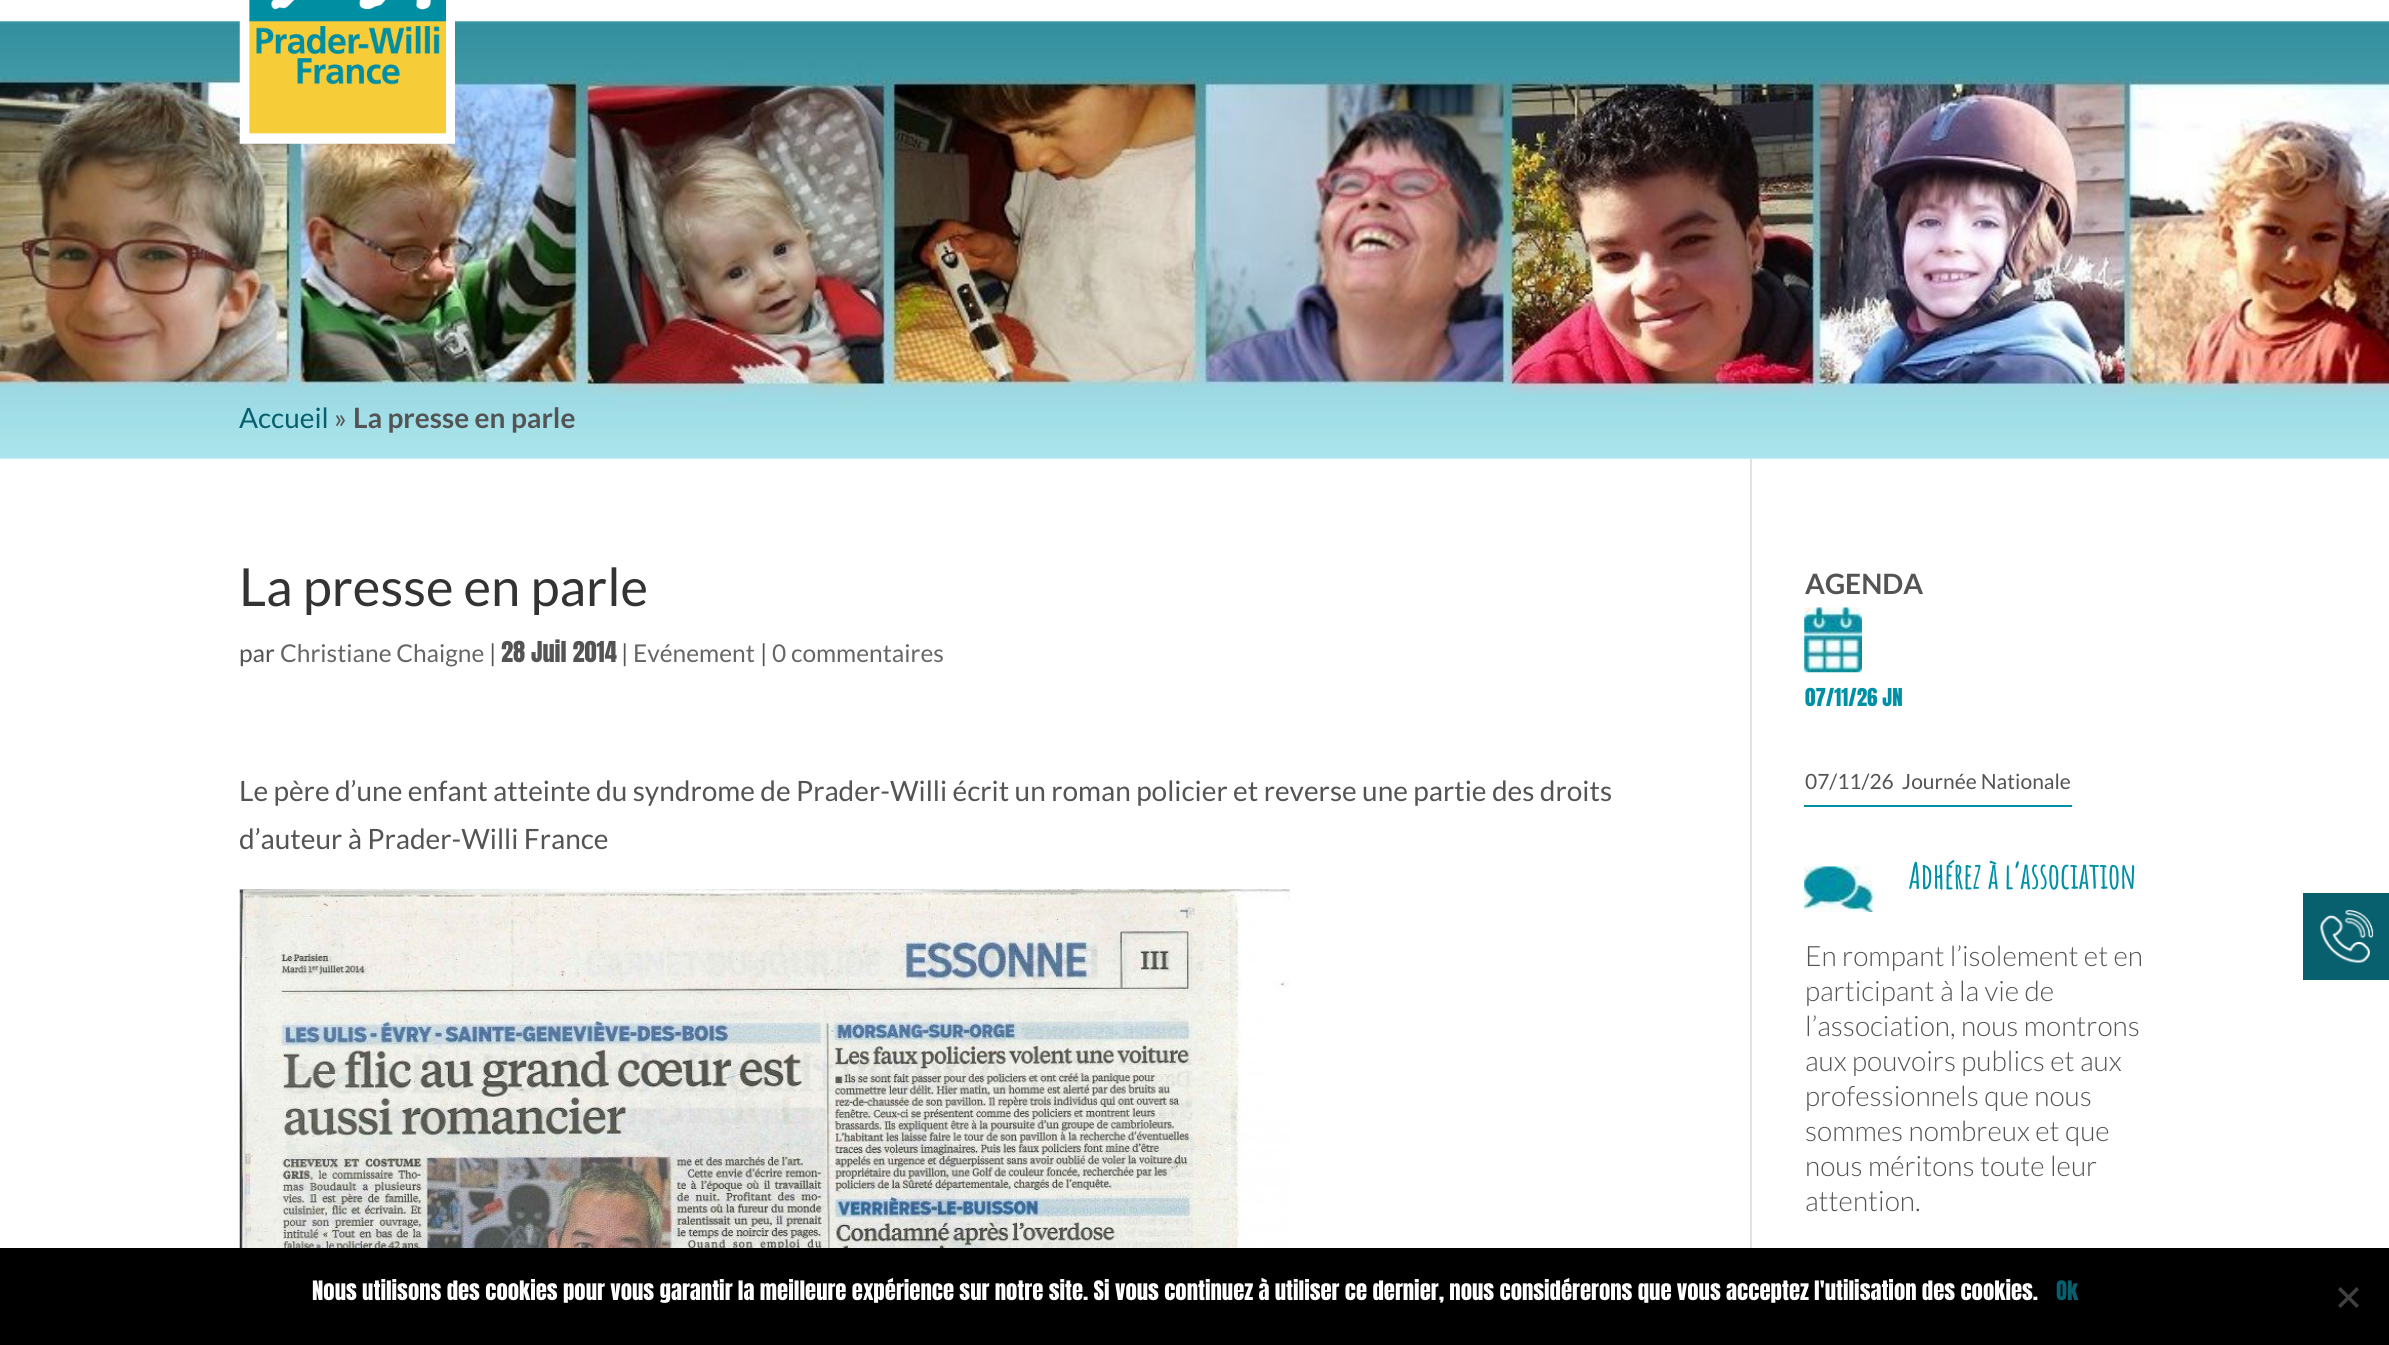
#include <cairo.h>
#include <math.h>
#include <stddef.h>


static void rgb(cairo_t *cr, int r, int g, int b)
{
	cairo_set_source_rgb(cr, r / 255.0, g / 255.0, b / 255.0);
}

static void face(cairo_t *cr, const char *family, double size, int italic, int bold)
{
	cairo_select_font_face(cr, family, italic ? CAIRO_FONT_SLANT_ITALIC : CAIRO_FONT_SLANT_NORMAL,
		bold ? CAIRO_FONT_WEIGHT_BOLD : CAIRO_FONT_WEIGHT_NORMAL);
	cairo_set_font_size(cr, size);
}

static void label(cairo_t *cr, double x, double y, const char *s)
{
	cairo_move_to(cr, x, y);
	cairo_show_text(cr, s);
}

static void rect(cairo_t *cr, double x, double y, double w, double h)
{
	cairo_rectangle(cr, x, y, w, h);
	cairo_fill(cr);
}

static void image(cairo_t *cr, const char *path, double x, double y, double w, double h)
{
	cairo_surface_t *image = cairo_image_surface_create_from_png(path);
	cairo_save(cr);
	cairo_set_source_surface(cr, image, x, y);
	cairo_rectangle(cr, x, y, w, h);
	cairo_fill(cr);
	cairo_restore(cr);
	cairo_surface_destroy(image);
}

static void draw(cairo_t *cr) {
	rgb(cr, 255, 255, 255);
	cairo_paint(cr);
	image(cr, "image1.png", 0, 21, 2389, 438);
	image(cr, "image0.png", 239, 0, 216, 144);
	face(cr, "Lato", 28, 0, 0);
	rgb(cr, 8, 96, 110);
	label(cr, 239, 428, "Accueil");
	rgb(cr, 84, 84, 84);
	label(cr, 334, 428, "»");
	face(cr, "Lato", 28, 0, 1);
	label(cr, 353, 428, "La presse en parle");
	rgb(cr, 226, 226, 226);
	rect(cr, 1750, 459, 2, 789);
	face(cr, "Lato", 52.5, 0, 0);
	rgb(cr, 51, 51, 51);
	label(cr, 239, 606, "La presse en parle");
	face(cr, "Lato", 24.5, 0, 0);
	rgb(cr, 84, 84, 84);
	label(cr, 239, 662, "par");
	rgb(cr, 102, 102, 102);
	label(cr, 280, 662, "Christiane Chaigne");
	rgb(cr, 84, 84, 84);
	label(cr, 489, 662, "|");
	face(cr, "Anton", 24.5, 0, 0);
	label(cr, 501, 662, "28 Juil 2014");
	face(cr, "Lato", 24.5, 0, 0);
	label(cr, 621, 662, "|");
	rgb(cr, 102, 102, 102);
	label(cr, 633, 662, "Evénement");
	rgb(cr, 84, 84, 84);
	label(cr, 760, 662, "|");
	rgb(cr, 102, 102, 102);
	label(cr, 772, 662, "0 commentaires");
	face(cr, "Lato", 28, 0, 0);
	rgb(cr, 84, 84, 84);
	label(cr, 239, 801, "Le père d’une enfant atteinte du syndrome de Prader-Willi écrit un roman policier et reverse une partie des droits");
	label(cr, 239, 849, "d’auteur à Prader-Willi France");
	image(cr, "image2.png", 239, 889, 1051, 359);
	face(cr, "Lato", 28, 0, 1);
	label(cr, 1805, 594, "AGENDA");
	image(cr, "image3.png", 1804, 607, 58, 66);
	face(cr, "Anton", 21, 0, 0);
	rgb(cr, 0, 144, 166);
	label(cr, 1805, 706, "07/11/26 JN");
	rect(cr, 1804, 805, 268, 2);
	face(cr, "Lato", 21, 0, 0);
	rgb(cr, 84, 84, 84);
	label(cr, 1805, 789, "07/11/26  Journée Nationale");
	image(cr, "image4.png", 1804, 866, 69, 46);
	face(cr, "Amatic SC", 35, 0, 1);
	rgb(cr, 0, 144, 166);
	label(cr, 1908, 889, "Adhérez à l’association");
	face(cr, "Lato Light", 28, 0, 0);
	rgb(cr, 84, 84, 84);
	label(cr, 1805, 966, "En rompant l’isolement et en");
	label(cr, 1805, 1001, "participant à la vie de");
	label(cr, 1805, 1036, "l’association, nous montrons");
	label(cr, 1805, 1071, "aux pouvoirs publics et aux");
	label(cr, 1805, 1106, "professionnels que nous");
	label(cr, 1805, 1141, "sommes nombreux et que");
	label(cr, 1805, 1176, "nous méritons toute leur");
	label(cr, 1805, 1211, "attention.");
	rgb(cr, 8, 96, 110);
	rect(cr, 2303, 893, 86, 87);
	image(cr, "image5.png", 2320, 910, 54, 53);
	rgb(cr, 0, 0, 0);
	rect(cr, 0, 1248, 2389, 97);
	face(cr, "Anton", 22.75, 0, 0);
	rgb(cr, 255, 255, 255);
	label(cr, 312, 1300, "Nous utilisons des cookies pour vous garantir la meilleure expérience sur notre site. Si vous continuez à utiliser ce dernier, nous considérerons que vous acceptez l'utilisation des cookies.");
	rgb(cr, 8, 96, 110);
	label(cr, 2056, 1300, "Ok");
	rgb(cr, 64, 64, 64);
	cairo_new_path(cr);
	cairo_move_to(cr, 2356.5, 1287);
	cairo_line_to(cr, 2359, 1289.5);
	cairo_line_to(cr, 2340.5, 1308);
	cairo_line_to(cr, 2338, 1305.5);
	cairo_close_path(cr);
	cairo_fill(cr);
	cairo_new_path(cr);
	cairo_move_to(cr, 2338, 1289.5);
	cairo_line_to(cr, 2340.5, 1287);
	cairo_line_to(cr, 2359, 1305.5);
	cairo_line_to(cr, 2356.5, 1308);
	cairo_close_path(cr);
	cairo_fill(cr);
}

int main(void) {
	cairo_surface_t *surface = cairo_image_surface_create(CAIRO_FORMAT_RGB24, 2389, 1345);
	cairo_t *cr = cairo_create(surface);
	cairo_font_options_t *options = cairo_font_options_create();
	cairo_font_options_set_hint_metrics(options, CAIRO_HINT_METRICS_OFF);
	cairo_font_options_set_hint_style(options, CAIRO_HINT_STYLE_NONE);
	cairo_set_font_options(cr, options);
	cairo_set_miter_limit(cr, 4);
	draw(cr);
	cairo_surface_write_to_png(surface, "render.png");
	cairo_font_options_destroy(options);
	cairo_destroy(cr);
	cairo_surface_destroy(surface);
	return 0;
}
